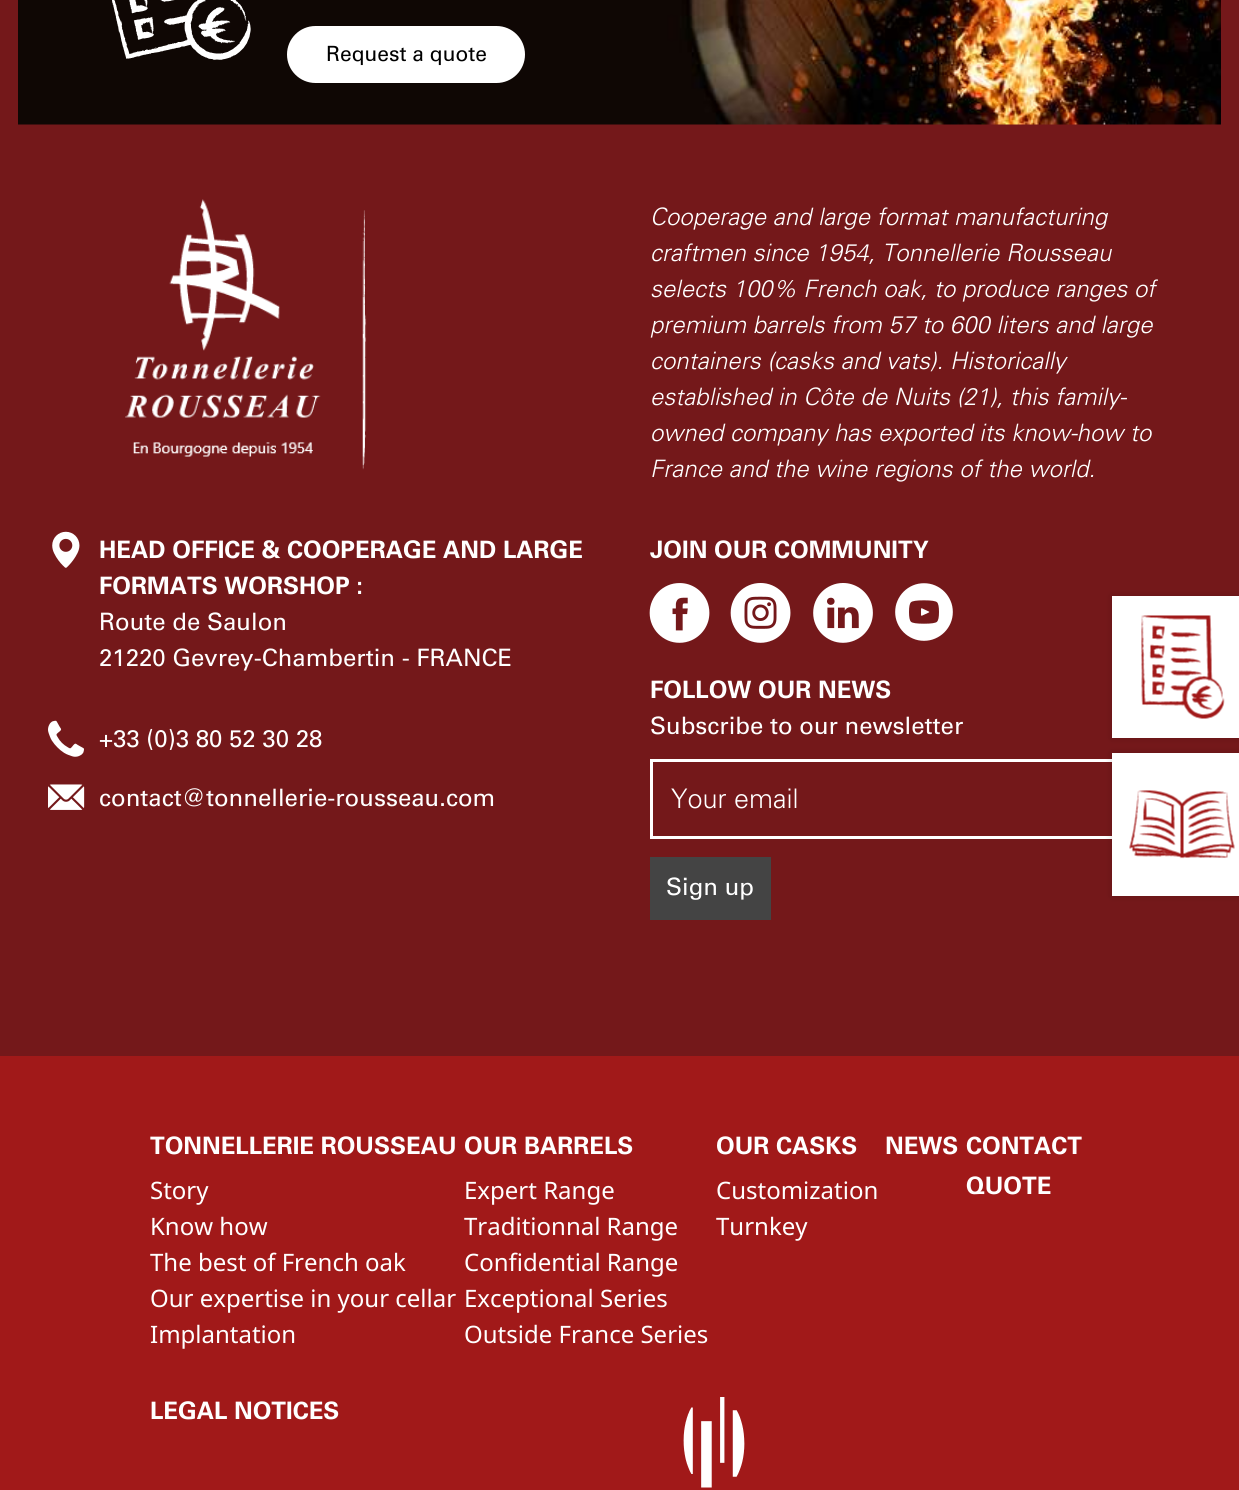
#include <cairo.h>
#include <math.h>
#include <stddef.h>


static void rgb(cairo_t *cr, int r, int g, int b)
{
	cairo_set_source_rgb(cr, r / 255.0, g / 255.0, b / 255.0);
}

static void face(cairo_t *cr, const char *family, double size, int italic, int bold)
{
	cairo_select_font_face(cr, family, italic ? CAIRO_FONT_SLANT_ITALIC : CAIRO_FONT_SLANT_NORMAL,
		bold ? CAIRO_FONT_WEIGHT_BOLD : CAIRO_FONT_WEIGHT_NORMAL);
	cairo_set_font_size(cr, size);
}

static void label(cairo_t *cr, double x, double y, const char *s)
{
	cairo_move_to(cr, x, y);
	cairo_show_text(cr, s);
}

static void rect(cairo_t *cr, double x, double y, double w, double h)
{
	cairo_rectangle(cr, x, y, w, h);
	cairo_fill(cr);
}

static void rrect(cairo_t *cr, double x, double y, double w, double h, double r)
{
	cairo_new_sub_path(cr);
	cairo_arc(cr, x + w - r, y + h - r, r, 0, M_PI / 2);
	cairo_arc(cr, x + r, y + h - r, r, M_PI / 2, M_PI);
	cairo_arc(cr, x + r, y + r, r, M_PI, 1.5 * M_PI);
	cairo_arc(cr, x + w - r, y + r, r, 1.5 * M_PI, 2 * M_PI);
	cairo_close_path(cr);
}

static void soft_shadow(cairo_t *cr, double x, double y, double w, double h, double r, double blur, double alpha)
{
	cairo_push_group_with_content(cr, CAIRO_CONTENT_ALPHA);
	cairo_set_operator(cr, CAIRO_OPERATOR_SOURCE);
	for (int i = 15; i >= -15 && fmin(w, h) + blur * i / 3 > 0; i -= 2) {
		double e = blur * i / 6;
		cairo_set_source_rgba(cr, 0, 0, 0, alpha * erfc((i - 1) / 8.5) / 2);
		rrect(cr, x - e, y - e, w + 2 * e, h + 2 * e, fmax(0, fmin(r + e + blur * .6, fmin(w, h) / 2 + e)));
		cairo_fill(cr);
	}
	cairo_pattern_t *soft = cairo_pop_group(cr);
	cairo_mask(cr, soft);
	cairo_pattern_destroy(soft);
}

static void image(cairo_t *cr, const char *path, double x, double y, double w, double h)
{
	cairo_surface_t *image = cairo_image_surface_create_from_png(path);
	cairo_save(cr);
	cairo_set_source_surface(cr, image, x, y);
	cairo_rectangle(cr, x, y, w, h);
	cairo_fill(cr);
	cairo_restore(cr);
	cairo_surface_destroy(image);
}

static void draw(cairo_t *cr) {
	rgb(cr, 116, 24, 26);
	cairo_paint(cr);
	image(cr, "image0.png", 18, 0, 1203, 125);
	image(cr, "image1.png", 112, 0, 139, 60);
	rgb(cr, 255, 255, 255);
	rrect(cr, 288, 27, 236, 55, 27.5);
	cairo_fill_preserve(cr);
	cairo_stroke(cr);
	face(cr, "Univers", 21, 0, 0);
	rgb(cr, 0, 0, 0);
	label(cr, 326, 61, "Request a quote");
	image(cr, "image2.png", 125, 199, 242, 271);
	face(cr, "Univers Light", 24, 1, 0);
	rgb(cr, 255, 255, 255);
	label(cr, 650, 225, "Cooperage and large format manufacturing");
	label(cr, 650, 261, "craftmen since 1954, Tonnellerie Rousseau");
	label(cr, 650, 297, "selects 100% French oak, to produce ranges of");
	label(cr, 650, 333, "premium barrels from 57 to 600 liters and large");
	label(cr, 650, 369, "containers (casks and vats). Historically");
	label(cr, 650, 405, "established in Côte de Nuits (21), this family-");
	label(cr, 650, 441, "owned company has exported its know-how to");
	label(cr, 650, 477, "France and the wine regions of the world.");
	image(cr, "image3.png", 52, 531, 28, 37);
	face(cr, "Univers", 24, 0, 1);
	label(cr, 99, 558, "HEAD OFFICE & COOPERAGE AND LARGE");
	label(cr, 99, 594, "FORMATS WORSHOP :");
	face(cr, "Univers", 24, 0, 0);
	label(cr, 99, 630, "Route de Saulon");
	label(cr, 99, 666, "21220 Gevrey-Chambertin - FRANCE");
	image(cr, "image4.png", 48, 720, 36, 37);
	label(cr, 99, 747, "+33 (0)3 80 52 30 28");
	image(cr, "image5.png", 48, 784, 37, 26);
	label(cr, 99, 806, "contact@tonnellerie-rousseau.com");
	face(cr, "Univers", 24, 0, 1);
	label(cr, 650, 558, "JOIN OUR COMMUNITY");
	image(cr, "image6.png", 649, 583, 61, 60);
	image(cr, "image7.png", 730, 583, 61, 60);
	image(cr, "image8.png", 813, 583, 60, 60);
	image(cr, "image9.png", 895, 583, 58, 58);
	label(cr, 650, 698, "FOLLOW OUR NEWS");
	face(cr, "Univers", 24, 0, 0);
	label(cr, 650, 734, "Subscribe to our newsletter");
	cairo_rectangle(cr, 651.5, 760.5, 538, 77);
	cairo_set_line_width(cr, 3);
	cairo_stroke(cr);
	face(cr, "Univers Light", 27, 0, 0);
	label(cr, 671, 808, "Your email");
	rgb(cr, 68, 68, 68);
	rect(cr, 650, 857, 121, 63);
	face(cr, "Univers", 24, 0, 0);
	rgb(cr, 255, 255, 255);
	label(cr, 666, 895, "Sign up");
	rgb(cr, 161, 25, 25);
	rect(cr, 0, 1056, 1239, 434);
	face(cr, "Univers", 24, 0, 1);
	rgb(cr, 255, 255, 255);
	label(cr, 150, 1154, "TONNELLERIE ROUSSEAU");
	face(cr, "Noto Sans", 24, 0, 0);
	label(cr, 150, 1199, "Story");
	label(cr, 150, 1235, "Know how");
	label(cr, 150, 1271, "The best of French oak");
	label(cr, 150, 1307, "Our expertise in your cellar");
	label(cr, 150, 1343, "Implantation");
	face(cr, "Univers", 24, 0, 1);
	label(cr, 464, 1154, "OUR BARRELS");
	face(cr, "Noto Sans", 24, 0, 0);
	label(cr, 464, 1199, "Expert Range");
	label(cr, 464, 1235, "Traditionnal Range");
	label(cr, 464, 1271, "Confidential Range");
	label(cr, 464, 1307, "Exceptional Series");
	label(cr, 464, 1343, "Outside France Series");
	face(cr, "Univers", 24, 0, 1);
	label(cr, 716, 1154, "OUR CASKS");
	face(cr, "Noto Sans", 24, 0, 0);
	label(cr, 716, 1199, "Customization");
	label(cr, 716, 1235, "Turnkey");
	face(cr, "Univers", 24, 0, 1);
	label(cr, 885, 1154, "NEWS");
	label(cr, 966, 1154, "CONTACT");
	label(cr, 966, 1194, "QUOTE");
	label(cr, 150, 1419, "LEGAL NOTICES");
	image(cr, "image10.png", 683, 1397, 62, 91);
	rgb(cr, 0, 0, 0);
	soft_shadow(cr, 1112, 596, 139, 142, 0, 4, 0.15);
	rgb(cr, 255, 255, 255);
	rect(cr, 1112, 596, 127, 142);
	image(cr, "image11.png", 1141, 615, 84, 104);
	rgb(cr, 0, 0, 0);
	soft_shadow(cr, 1112, 753, 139, 143, 0, 4, 0.15);
	rgb(cr, 255, 255, 255);
	rect(cr, 1112, 753, 127, 143);
	image(cr, "image12.png", 1129, 790, 106, 69);
}

int main(void) {
	cairo_surface_t *surface = cairo_image_surface_create(CAIRO_FORMAT_RGB24, 1239, 1490);
	cairo_t *cr = cairo_create(surface);
	cairo_font_options_t *options = cairo_font_options_create();
	cairo_font_options_set_hint_metrics(options, CAIRO_HINT_METRICS_OFF);
	cairo_font_options_set_hint_style(options, CAIRO_HINT_STYLE_NONE);
	cairo_set_font_options(cr, options);
	cairo_set_miter_limit(cr, 4);
	draw(cr);
	cairo_surface_write_to_png(surface, "render.png");
	cairo_font_options_destroy(options);
	cairo_destroy(cr);
	cairo_surface_destroy(surface);
	return 0;
}
